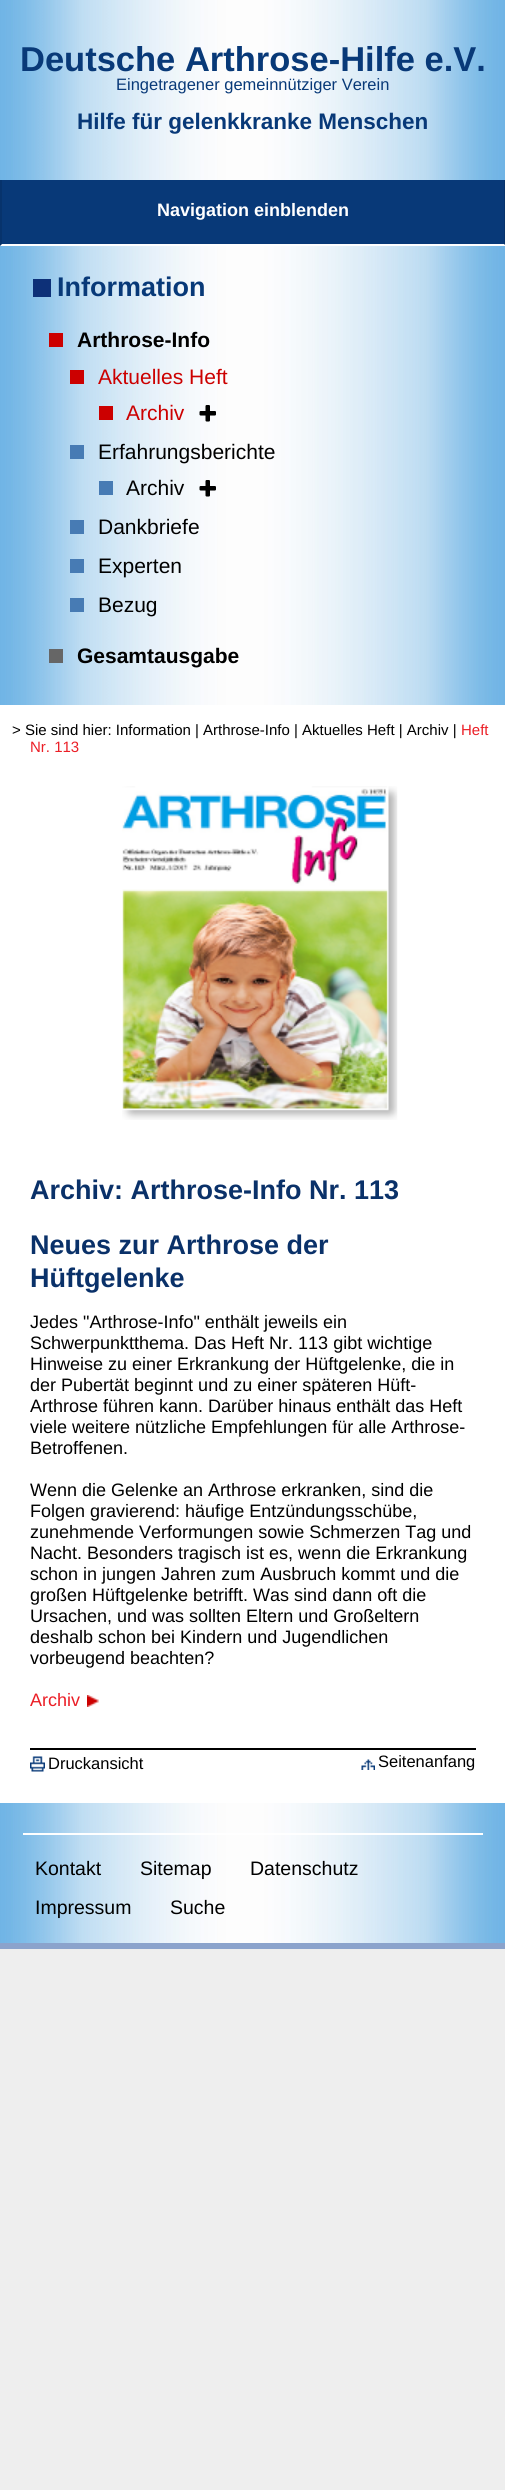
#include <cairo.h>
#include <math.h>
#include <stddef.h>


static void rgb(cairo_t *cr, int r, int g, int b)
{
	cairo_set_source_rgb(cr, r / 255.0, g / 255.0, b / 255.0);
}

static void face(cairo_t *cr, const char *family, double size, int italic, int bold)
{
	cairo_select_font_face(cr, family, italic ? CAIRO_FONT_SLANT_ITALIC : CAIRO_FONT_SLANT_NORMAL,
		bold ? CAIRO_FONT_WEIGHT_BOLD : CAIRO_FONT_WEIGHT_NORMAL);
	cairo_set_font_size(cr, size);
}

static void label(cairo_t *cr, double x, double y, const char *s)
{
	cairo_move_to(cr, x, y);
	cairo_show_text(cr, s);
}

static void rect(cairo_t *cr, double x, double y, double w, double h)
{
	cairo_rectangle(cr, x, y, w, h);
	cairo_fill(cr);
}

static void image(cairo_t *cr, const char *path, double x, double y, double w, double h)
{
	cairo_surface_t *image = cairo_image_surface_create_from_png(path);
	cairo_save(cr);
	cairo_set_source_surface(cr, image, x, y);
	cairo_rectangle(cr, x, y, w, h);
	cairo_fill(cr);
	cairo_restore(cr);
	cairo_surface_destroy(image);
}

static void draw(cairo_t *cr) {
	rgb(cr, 238, 238, 238);
	cairo_paint(cr);
	image(cr, "image0.png", 0, 0, 505, 1943);
	face(cr, "Liberation Sans", 34.5, 0, 1);
	rgb(cr, 8, 57, 120);
	label(cr, 20, 71, "Deutsche Arthrose-Hilfe e.V.");
	face(cr, "Liberation Sans", 16.5, 0, 0);
	label(cr, 116, 90, "Eingetragener gemeinnütziger Verein");
	face(cr, "Liberation Sans", 22.5, 0, 1);
	label(cr, 77, 129, "Hilfe für gelenkkranke Menschen");
	rect(cr, 0, 180, 505, 66);
	rgb(cr, 7, 51, 108);
	cairo_new_path(cr);
	cairo_move_to(cr, 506, 180);
	cairo_line_to(cr, 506, 246);
	cairo_line_to(cr, 504, 244);
	cairo_line_to(cr, 504, 180);
	cairo_close_path(cr);
	cairo_fill(cr);
	rgb(cr, 255, 255, 255);
	cairo_new_path(cr);
	cairo_move_to(cr, 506, 246);
	cairo_line_to(cr, 0, 246);
	cairo_line_to(cr, 2, 244);
	cairo_line_to(cr, 504, 244);
	cairo_close_path(cr);
	cairo_fill(cr);
	cairo_set_source_rgba(cr, 0, 0, 0, 0.1);
	cairo_new_path(cr);
	cairo_move_to(cr, 0, 246);
	cairo_line_to(cr, 0, 180);
	cairo_line_to(cr, 2, 180);
	cairo_line_to(cr, 2, 244);
	cairo_close_path(cr);
	cairo_fill(cr);
	face(cr, "Liberation Sans", 18, 0, 1);
	rgb(cr, 255, 255, 255);
	label(cr, 157, 216, "Navigation einblenden");
	rgb(cr, 13, 48, 120);
	rect(cr, 33, 279, 18, 18);
	face(cr, "Liberation Sans", 27, 0, 1);
	rgb(cr, 8, 57, 120);
	label(cr, 57, 296, "Information");
	rgb(cr, 204, 0, 0);
	rect(cr, 49, 333, 14, 14);
	face(cr, "Liberation Sans", 21, 0, 1);
	rgb(cr, 0, 0, 0);
	label(cr, 77, 347, "Arthrose-Info");
	rgb(cr, 204, 0, 0);
	rect(cr, 70, 370, 14, 14);
	face(cr, "Liberation Sans", 21, 0, 0);
	label(cr, 98, 384, "Aktuelles Heft");
	rect(cr, 99, 406, 14, 14);
	label(cr, 126, 420, "Archiv");
	image(cr, "image1.png", 199, 405, 17, 17);
	rgb(cr, 71, 123, 180);
	rect(cr, 70, 445, 14, 14);
	rgb(cr, 0, 0, 0);
	label(cr, 98, 459, "Erfahrungsberichte");
	rgb(cr, 71, 123, 180);
	rect(cr, 99, 481, 14, 14);
	rgb(cr, 0, 0, 0);
	label(cr, 126, 495, "Archiv");
	image(cr, "image1.png", 199, 480, 17, 17);
	rgb(cr, 71, 123, 180);
	rect(cr, 70, 520, 14, 14);
	rgb(cr, 0, 0, 0);
	label(cr, 98, 534, "Dankbriefe");
	rgb(cr, 71, 123, 180);
	rect(cr, 70, 559, 14, 14);
	rgb(cr, 0, 0, 0);
	label(cr, 98, 573, "Experten");
	rgb(cr, 71, 123, 180);
	rect(cr, 70, 598, 14, 14);
	rgb(cr, 0, 0, 0);
	label(cr, 98, 612, "Bezug");
	rgb(cr, 102, 102, 102);
	rect(cr, 49, 649, 14, 14);
	face(cr, "Liberation Sans", 21, 0, 1);
	rgb(cr, 0, 0, 0);
	label(cr, 77, 663, "Gesamtausgabe");
	rgb(cr, 255, 255, 255);
	rect(cr, 0, 705, 505, 1098);
	face(cr, "Liberation Sans", 15, 0, 0);
	rgb(cr, 0, 0, 0);
	label(cr, 12, 735, "> Sie sind hier: Information | Arthrose-Info | Aktuelles Heft | Archiv |");
	rgb(cr, 235, 30, 38);
	label(cr, 461, 735, "Heft");
	label(cr, 30, 752, "Nr. 113");
	image(cr, "image2.png", 122, 786, 276, 334);
	face(cr, "Liberation Sans", 27, 0, 1);
	rgb(cr, 10, 49, 105);
	label(cr, 30, 1199, "Archiv: Arthrose-Info Nr. 113");
	label(cr, 30, 1254, "Neues zur Arthrose der");
	label(cr, 30, 1287, "Hüftgelenke");
	face(cr, "Liberation Sans", 18, 0, 0);
	rgb(cr, 0, 0, 0);
	label(cr, 30, 1328, "Jedes \"Arthrose-Info\" enthält jeweils ein");
	label(cr, 30, 1349, "Schwerpunktthema. Das Heft Nr. 113 gibt wichtige");
	label(cr, 30, 1370, "Hinweise zu einer Erkrankung der Hüftgelenke, die in");
	label(cr, 30, 1391, "der Pubertät beginnt und zu einer späteren Hüft-");
	label(cr, 30, 1412, "Arthrose führen kann. Darüber hinaus enthält das Heft");
	label(cr, 30, 1433, "viele weitere nützliche Empfehlungen für alle Arthrose-");
	label(cr, 30, 1454, "Betroffenen.");
	label(cr, 30, 1496, "Wenn die Gelenke an Arthrose erkranken, sind die");
	label(cr, 30, 1517, "Folgen gravierend: häufige Entzündungsschübe,");
	label(cr, 30, 1538, "zunehmende Verformungen sowie Schmerzen Tag und");
	label(cr, 30, 1559, "Nacht. Besonders tragisch ist es, wenn die Erkrankung");
	label(cr, 30, 1580, "schon in jungen Jahren zum Ausbruch kommt und die");
	label(cr, 30, 1601, "großen Hüftgelenke betrifft. Was sind dann oft die");
	label(cr, 30, 1622, "Ursachen, und was sollten Eltern und Großeltern");
	label(cr, 30, 1643, "deshalb schon bei Kindern und Jugendlichen");
	label(cr, 30, 1664, "vorbeugend beachten?");
	rgb(cr, 235, 30, 38);
	label(cr, 30, 1706, "Archiv");
	image(cr, "image3.png", 87, 1695, 12, 12);
	rgb(cr, 0, 0, 0);
	rect(cr, 30, 1748, 446, 2);
	image(cr, "image4.png", 30, 1756, 15, 16);
	face(cr, "Liberation Sans", 16.5, 0, 0);
	label(cr, 48, 1769, "Druckansicht");
	image(cr, "image5.png", 361, 1759, 14, 11);
	label(cr, 378, 1767, "Seitenanfang");
	rgb(cr, 255, 255, 255);
	rect(cr, 23, 1833, 460, 2);
	face(cr, "Liberation Sans", 19.5, 0, 0);
	rgb(cr, 0, 0, 0);
	label(cr, 35, 1875, "Kontakt");
	label(cr, 140, 1875, "Sitemap");
	label(cr, 250, 1875, "Datenschutz");
	label(cr, 35, 1914, "Impressum");
	label(cr, 170, 1914, "Suche");
	rgb(cr, 139, 163, 204);
	rect(cr, 0, 1943, 505, 6);
}

int main(void) {
	cairo_surface_t *surface = cairo_image_surface_create(CAIRO_FORMAT_RGB24, 505, 2490);
	cairo_t *cr = cairo_create(surface);
	cairo_font_options_t *options = cairo_font_options_create();
	cairo_font_options_set_hint_metrics(options, CAIRO_HINT_METRICS_OFF);
	cairo_font_options_set_hint_style(options, CAIRO_HINT_STYLE_NONE);
	cairo_set_font_options(cr, options);
	cairo_set_miter_limit(cr, 4);
	draw(cr);
	cairo_surface_write_to_png(surface, "render.png");
	cairo_font_options_destroy(options);
	cairo_destroy(cr);
	cairo_surface_destroy(surface);
	return 0;
}
